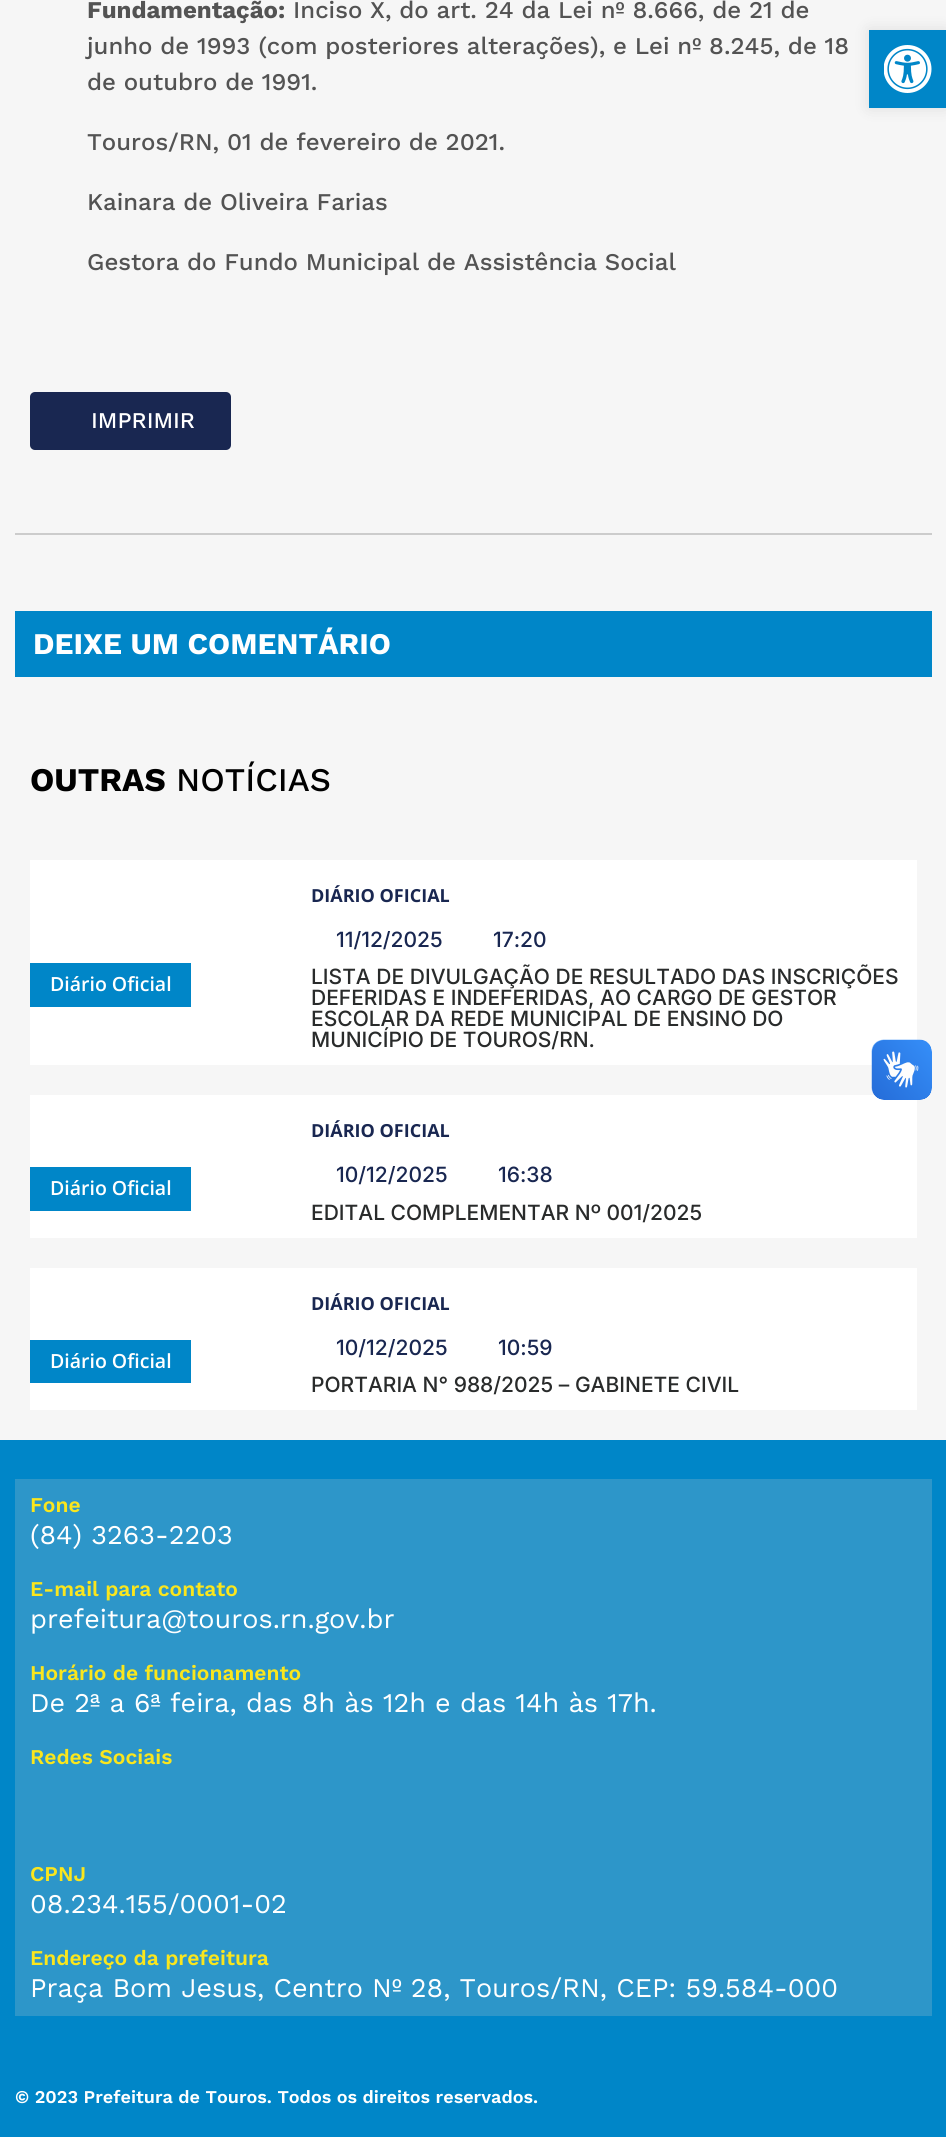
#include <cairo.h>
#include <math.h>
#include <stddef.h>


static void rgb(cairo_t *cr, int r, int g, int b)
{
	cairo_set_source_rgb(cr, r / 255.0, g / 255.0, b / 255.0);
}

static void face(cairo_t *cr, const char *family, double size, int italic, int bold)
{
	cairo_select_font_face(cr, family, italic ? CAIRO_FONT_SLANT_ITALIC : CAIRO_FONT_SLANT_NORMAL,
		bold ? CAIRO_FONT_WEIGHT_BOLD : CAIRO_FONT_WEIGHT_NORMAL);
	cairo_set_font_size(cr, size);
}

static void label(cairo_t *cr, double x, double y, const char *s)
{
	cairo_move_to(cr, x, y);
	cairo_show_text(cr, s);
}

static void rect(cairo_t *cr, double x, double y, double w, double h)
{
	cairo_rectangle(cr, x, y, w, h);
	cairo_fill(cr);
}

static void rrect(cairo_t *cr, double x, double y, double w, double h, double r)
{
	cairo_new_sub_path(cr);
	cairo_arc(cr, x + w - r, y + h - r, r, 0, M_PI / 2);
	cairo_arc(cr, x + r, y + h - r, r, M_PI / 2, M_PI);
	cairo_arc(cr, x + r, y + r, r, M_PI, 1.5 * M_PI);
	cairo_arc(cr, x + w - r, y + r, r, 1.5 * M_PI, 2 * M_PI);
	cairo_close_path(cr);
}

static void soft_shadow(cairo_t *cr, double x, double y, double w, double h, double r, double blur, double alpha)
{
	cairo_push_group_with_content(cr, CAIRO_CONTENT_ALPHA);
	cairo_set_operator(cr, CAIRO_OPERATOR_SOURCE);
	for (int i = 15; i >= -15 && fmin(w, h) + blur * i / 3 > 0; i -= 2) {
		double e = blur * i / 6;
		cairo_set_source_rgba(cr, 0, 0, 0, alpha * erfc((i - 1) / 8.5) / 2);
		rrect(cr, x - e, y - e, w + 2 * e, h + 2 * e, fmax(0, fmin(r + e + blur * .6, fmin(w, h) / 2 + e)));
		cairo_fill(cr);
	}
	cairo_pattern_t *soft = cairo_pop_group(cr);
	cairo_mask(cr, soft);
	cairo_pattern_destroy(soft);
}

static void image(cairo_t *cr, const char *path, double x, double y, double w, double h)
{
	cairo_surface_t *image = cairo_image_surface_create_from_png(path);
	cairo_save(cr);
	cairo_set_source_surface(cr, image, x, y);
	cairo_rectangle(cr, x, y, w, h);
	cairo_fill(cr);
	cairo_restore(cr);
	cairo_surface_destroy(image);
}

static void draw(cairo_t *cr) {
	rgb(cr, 246, 246, 246);
	cairo_paint(cr);
	face(cr, "Work Sans", 24, 0, 1);
	rgb(cr, 83, 83, 83);
	label(cr, 87, 18, "Fundamentação:");
	face(cr, "Work Sans Medium", 24, 0, 0);
	label(cr, 293, 18, "Inciso X, do art. 24 da Lei nº 8.666, de 21 de");
	label(cr, 87, 54, "junho de 1993 (com posteriores alterações), e Lei nº 8.245, de 18");
	label(cr, 87, 90, "de outubro de 1991.");
	label(cr, 87, 150, "Touros/RN, 01 de fevereiro de 2021.");
	label(cr, 87, 210, "Kainara de Oliveira Farias");
	label(cr, 87, 270, "Gestora do Fundo Municipal de Assistência Social");
	rgb(cr, 25, 39, 81);
	rrect(cr, 30, 392, 201, 58, 5);
	cairo_fill(cr);
	face(cr, "Work Sans Medium", 22.5, 0, 0);
	rgb(cr, 255, 255, 255);
	label(cr, 91, 428, "IMPRIMIR");
	rgb(cr, 204, 204, 204);
	rect(cr, 15, 533, 917, 2);
	rgb(cr, 0, 134, 200);
	rect(cr, 15, 611, 917, 66);
	face(cr, "Work Sans", 30, 0, 1);
	rgb(cr, 255, 255, 255);
	label(cr, 33, 654, "DEIXE UM COMENTÁRIO");
	face(cr, "Work Sans", 33, 0, 1);
	rgb(cr, 0, 0, 0);
	label(cr, 30, 791, "OUTRAS");
	face(cr, "Work Sans Medium", 33, 0, 0);
	label(cr, 176, 791, "NOTÍCIAS");
	rgb(cr, 255, 255, 255);
	rect(cr, 30, 860, 887, 205);
	rgb(cr, 0, 134, 200);
	rect(cr, 30, 963, 161, 44);
	face(cr, "Open Sans SemiBold", 19.5, 0, 0);
	rgb(cr, 255, 255, 255);
	label(cr, 50, 991, "Diário Oficial");
	face(cr, "Open Sans", 18, 0, 1);
	rgb(cr, 25, 39, 81);
	label(cr, 311, 902, "DIÁRIO OFICIAL");
	face(cr, "Inter Medium", 21, 0, 0);
	label(cr, 336, 947, "11/12/2025");
	label(cr, 493, 947, "17:20");
	rgb(cr, 41, 43, 43);
	label(cr, 311, 984, "LISTA DE DIVULGAÇÃO DE RESULTADO DAS INSCRIÇÕES");
	label(cr, 311, 1005, "DEFERIDAS E INDEFERIDAS, AO CARGO DE GESTOR");
	label(cr, 311, 1026, "ESCOLAR DA REDE MUNICIPAL DE ENSINO DO");
	label(cr, 311, 1047, "MUNICÍPIO DE TOUROS/RN.");
	rgb(cr, 255, 255, 255);
	rect(cr, 30, 1095, 887, 143);
	rgb(cr, 0, 134, 200);
	rect(cr, 30, 1167, 161, 44);
	face(cr, "Open Sans SemiBold", 19.5, 0, 0);
	rgb(cr, 255, 255, 255);
	label(cr, 50, 1195, "Diário Oficial");
	face(cr, "Open Sans", 18, 0, 1);
	rgb(cr, 25, 39, 81);
	label(cr, 311, 1137, "DIÁRIO OFICIAL");
	face(cr, "Inter Medium", 21, 0, 0);
	label(cr, 336, 1182, "10/12/2025");
	label(cr, 498, 1182, "16:38");
	rgb(cr, 41, 43, 43);
	label(cr, 311, 1220, "EDITAL COMPLEMENTAR Nº 001/2025");
	rgb(cr, 255, 255, 255);
	rect(cr, 30, 1268, 887, 142);
	rgb(cr, 0, 134, 200);
	rect(cr, 30, 1340, 161, 43);
	face(cr, "Open Sans SemiBold", 19.5, 0, 0);
	rgb(cr, 255, 255, 255);
	label(cr, 50, 1368, "Diário Oficial");
	face(cr, "Open Sans", 18, 0, 1);
	rgb(cr, 25, 39, 81);
	label(cr, 311, 1310, "DIÁRIO OFICIAL");
	face(cr, "Inter Medium", 21, 0, 0);
	label(cr, 336, 1355, "10/12/2025");
	label(cr, 498, 1355, "10:59");
	rgb(cr, 41, 43, 43);
	label(cr, 311, 1392, "PORTARIA N° 988/2025 – GABINETE CIVIL");
	rgb(cr, 0, 0, 0);
	soft_shadow(cr, 869, 30, 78, 78, 0, 7.5, 0.1);
	rgb(cr, 0, 134, 200);
	rect(cr, 869, 30, 77, 78);
	image(cr, "image0.png", 884, 45, 48, 48);
	image(cr, "image1.png", 871, 1039, 61, 61);
	image(cr, "image2.png", 872, 1040, 60, 60);
	rect(cr, 0, 1440, 946, 697);
	rgb(cr, 45, 150, 201);
	rect(cr, 15, 1479, 917, 537);
	face(cr, "Work Sans SemiBold", 21, 0, 0);
	rgb(cr, 250, 230, 29);
	label(cr, 30, 1512, "Fone");
	face(cr, "Work Sans", 27, 0, 0);
	rgb(cr, 255, 255, 255);
	label(cr, 30, 1544, "(84) 3263-2203");
	face(cr, "Work Sans SemiBold", 21, 0, 0);
	rgb(cr, 250, 230, 29);
	label(cr, 30, 1596, "E-mail para contato");
	face(cr, "Work Sans", 27, 0, 0);
	rgb(cr, 255, 255, 255);
	label(cr, 30, 1628, "prefeitura@touros.rn.gov.br");
	face(cr, "Work Sans SemiBold", 21, 0, 0);
	rgb(cr, 250, 230, 29);
	label(cr, 30, 1680, "Horário de funcionamento");
	face(cr, "Work Sans", 27, 0, 0);
	rgb(cr, 255, 255, 255);
	label(cr, 30, 1712, "De 2ª a 6ª feira, das 8h às 12h e das 14h às 17h.");
	face(cr, "Work Sans SemiBold", 21, 0, 0);
	rgb(cr, 250, 230, 29);
	label(cr, 30, 1764, "Redes Sociais");
	label(cr, 30, 1881, "CPNJ");
	face(cr, "Work Sans", 27, 0, 0);
	rgb(cr, 255, 255, 255);
	label(cr, 30, 1913, "08.234.155/0001-02");
	face(cr, "Work Sans SemiBold", 21, 0, 0);
	rgb(cr, 250, 230, 29);
	label(cr, 30, 1965, "Endereço da prefeitura");
	face(cr, "Work Sans", 27, 0, 0);
	rgb(cr, 255, 255, 255);
	label(cr, 30, 1997, "Praça Bom Jesus, Centro Nº 28, Touros/RN, CEP: 59.584-000");
	face(cr, "Work Sans SemiBold", 18, 0, 0);
	label(cr, 15, 2103, "© 2023 Prefeitura de Touros. Todos os direitos reservados.");
}

int main(void) {
	cairo_surface_t *surface = cairo_image_surface_create(CAIRO_FORMAT_RGB24, 946, 2137);
	cairo_t *cr = cairo_create(surface);
	cairo_font_options_t *options = cairo_font_options_create();
	cairo_font_options_set_hint_metrics(options, CAIRO_HINT_METRICS_OFF);
	cairo_font_options_set_hint_style(options, CAIRO_HINT_STYLE_NONE);
	cairo_set_font_options(cr, options);
	cairo_set_miter_limit(cr, 4);
	draw(cr);
	cairo_surface_write_to_png(surface, "render.png");
	cairo_font_options_destroy(options);
	cairo_destroy(cr);
	cairo_surface_destroy(surface);
	return 0;
}
